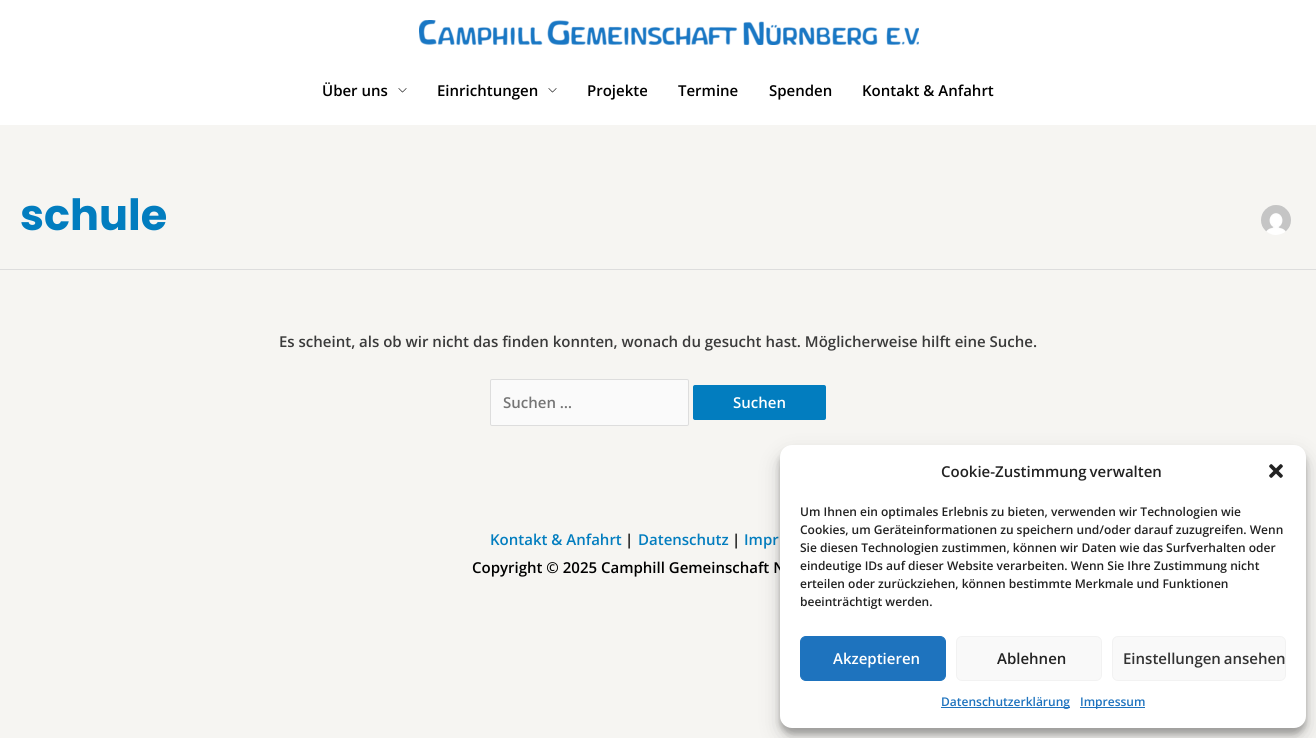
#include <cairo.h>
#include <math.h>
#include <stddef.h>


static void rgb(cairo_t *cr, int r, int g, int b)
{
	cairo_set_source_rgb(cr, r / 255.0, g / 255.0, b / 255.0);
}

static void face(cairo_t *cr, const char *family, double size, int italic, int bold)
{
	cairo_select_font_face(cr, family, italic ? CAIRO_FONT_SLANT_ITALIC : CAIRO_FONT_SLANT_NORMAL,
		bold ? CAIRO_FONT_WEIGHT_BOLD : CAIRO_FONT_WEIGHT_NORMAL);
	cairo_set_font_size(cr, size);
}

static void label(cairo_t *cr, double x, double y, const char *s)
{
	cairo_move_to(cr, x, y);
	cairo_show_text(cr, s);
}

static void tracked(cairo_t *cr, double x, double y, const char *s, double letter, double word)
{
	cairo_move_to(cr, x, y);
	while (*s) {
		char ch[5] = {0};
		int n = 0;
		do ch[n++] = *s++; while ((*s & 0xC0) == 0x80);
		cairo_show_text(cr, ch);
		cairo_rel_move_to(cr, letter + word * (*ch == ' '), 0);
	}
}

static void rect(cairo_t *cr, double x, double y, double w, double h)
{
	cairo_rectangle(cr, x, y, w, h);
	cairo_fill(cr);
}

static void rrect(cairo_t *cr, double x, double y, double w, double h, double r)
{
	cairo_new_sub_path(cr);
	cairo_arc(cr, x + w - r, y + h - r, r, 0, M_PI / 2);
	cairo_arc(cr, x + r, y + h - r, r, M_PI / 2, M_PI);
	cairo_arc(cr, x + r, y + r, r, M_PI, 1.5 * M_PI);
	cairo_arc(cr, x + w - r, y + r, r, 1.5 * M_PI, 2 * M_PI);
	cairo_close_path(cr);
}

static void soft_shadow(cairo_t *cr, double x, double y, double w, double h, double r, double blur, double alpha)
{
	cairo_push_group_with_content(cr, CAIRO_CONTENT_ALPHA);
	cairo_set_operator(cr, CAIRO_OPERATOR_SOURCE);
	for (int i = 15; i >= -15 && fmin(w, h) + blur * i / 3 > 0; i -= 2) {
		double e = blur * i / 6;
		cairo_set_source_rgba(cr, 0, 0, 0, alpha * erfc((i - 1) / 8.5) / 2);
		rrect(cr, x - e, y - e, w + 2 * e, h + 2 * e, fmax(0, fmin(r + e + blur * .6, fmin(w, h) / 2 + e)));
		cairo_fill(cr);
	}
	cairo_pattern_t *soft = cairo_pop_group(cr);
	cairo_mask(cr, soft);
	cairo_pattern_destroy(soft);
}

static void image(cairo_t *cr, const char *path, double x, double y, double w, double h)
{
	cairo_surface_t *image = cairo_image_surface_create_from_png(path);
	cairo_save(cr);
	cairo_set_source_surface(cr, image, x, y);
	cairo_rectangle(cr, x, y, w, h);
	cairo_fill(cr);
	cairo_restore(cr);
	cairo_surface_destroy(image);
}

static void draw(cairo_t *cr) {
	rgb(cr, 246, 245, 242);
	cairo_paint(cr);
	rgb(cr, 255, 255, 255);
	rect(cr, 0, 0, 1316, 125);
	image(cr, "image0.png", 419, 20, 500, 25);
	face(cr, "Open Sans SemiBold", 15, 0, 0);
	rgb(cr, 0, 0, 0);
	label(cr, 322, 96, "Über uns");
	image(cr, "image1.png", 398, 88, 9, 5);
	label(cr, 437, 96, "Einrichtungen");
	image(cr, "image1.png", 548, 88, 9, 5);
	label(cr, 587, 96, "Projekte");
	label(cr, 678, 96, "Termine");
	label(cr, 769, 96, "Spenden");
	label(cr, 862, 96, "Kontakt & Anfahrt");
	rgb(cr, 221, 221, 221);
	rect(cr, 0, 269, 1316, 1);
	face(cr, "Poppins", 43, 0, 1);
	rgb(cr, 2, 125, 191);
	label(cr, 20, 230, "schule");
	image(cr, "image2.png", 1261, 205, 30, 30);
	face(cr, "Open Sans SemiBold", 15, 0, 0);
	rgb(cr, 58, 58, 58);
	label(cr, 279, 347, "Es scheint, als ob wir nicht das finden konnten, wonach du gesucht hast. Möglicherweise hilft eine Suche.");
	rgb(cr, 250, 250, 250);
	rrect(cr, 490.5, 379.5, 198, 46, 1.5);
	cairo_fill_preserve(cr);
	rgb(cr, 221, 221, 221);
	cairo_set_line_width(cr, 1);
	cairo_stroke(cr);
	rgb(cr, 117, 117, 117);
	label(cr, 503, 408, "Suchen …");
	rgb(cr, 2, 125, 191);
	rrect(cr, 693, 385, 133, 35, 2);
	cairo_fill(cr);
	rgb(cr, 255, 255, 255);
	label(cr, 733, 408, "Suchen");
	rgb(cr, 2, 125, 191);
	label(cr, 490, 545, "Kontakt & Anfahrt");
	rgb(cr, 0, 0, 0);
	label(cr, 625, 545, "|");
	rgb(cr, 2, 125, 191);
	label(cr, 638, 545, "Datenschutz");
	rgb(cr, 0, 0, 0);
	label(cr, 732, 545, "|");
	rgb(cr, 2, 125, 191);
	label(cr, 744, 545, "Impr");
	rgb(cr, 0, 0, 0);
	label(cr, 472, 573, "Copyright © 2025 Camphill Gemeinschaft N");
	rgb(cr, 0, 0, 0);
	soft_shadow(cr, 780, 451, 526, 283, 12, 3, 0.23);
	soft_shadow(cr, 780, 455, 526, 283, 12, 10, 0.19);
	rgb(cr, 255, 255, 255);
	rrect(cr, 780, 445, 526, 283, 12);
	cairo_fill(cr);
	rgb(cr, 34, 34, 34);
	tracked(cr, 941, 477, "Cookie-Zustimmung verwalten", 0, -1);
	image(cr, "image3.png", 1269, 464, 14, 14);
	face(cr, "Open Sans SemiBold", 12, 0, 0);
	label(cr, 800, 516, "Um Ihnen ein optimales Erlebnis zu bieten, verwenden wir Technologien wie");
	label(cr, 800, 534, "Cookies, um Geräteinformationen zu speichern und/oder darauf zuzugreifen. Wenn");
	label(cr, 800, 552, "Sie diesen Technologien zustimmen, können wir Daten wie das Surfverhalten oder");
	label(cr, 800, 570, "eindeutige IDs auf dieser Website verarbeiten. Wenn Sie Ihre Zustimmung nicht");
	label(cr, 800, 588, "erteilen oder zurückziehen, können bestimmte Merkmale und Funktionen");
	label(cr, 800, 606, "beeinträchtigt werden.");
	rgb(cr, 30, 115, 190);
	rrect(cr, 800.5, 636.5, 145, 44, 5.5);
	cairo_fill_preserve(cr);
	cairo_stroke(cr);
	face(cr, "Open Sans SemiBold", 15, 0, 0);
	rgb(cr, 255, 255, 255);
	label(cr, 833, 664, "Akzeptieren");
	rgb(cr, 249, 249, 249);
	rrect(cr, 956.5, 636.5, 145, 44, 5.5);
	cairo_fill_preserve(cr);
	rgb(cr, 242, 242, 242);
	cairo_stroke(cr);
	rgb(cr, 34, 34, 34);
	label(cr, 997, 664, "Ablehnen");
	rgb(cr, 249, 249, 249);
	rrect(cr, 1112.5, 636.5, 173, 44, 5.5);
	cairo_fill_preserve(cr);
	rgb(cr, 242, 242, 242);
	cairo_stroke(cr);
	rgb(cr, 51, 51, 51);
	tracked(cr, 1123, 664, "Einstellungen ansehen", 0, -1);
	rgb(cr, 30, 115, 190);
	rect(cr, 941, 707, 129, 1);
	face(cr, "Open Sans SemiBold", 12, 0, 0);
	label(cr, 941, 706, "Datenschutzerklärung");
	rect(cr, 1080, 707, 65, 1);
	label(cr, 1080, 706, "Impressum");
}

int main(void) {
	cairo_surface_t *surface = cairo_image_surface_create(CAIRO_FORMAT_RGB24, 1316, 738);
	cairo_t *cr = cairo_create(surface);
	cairo_font_options_t *options = cairo_font_options_create();
	cairo_font_options_set_hint_metrics(options, CAIRO_HINT_METRICS_OFF);
	cairo_font_options_set_hint_style(options, CAIRO_HINT_STYLE_NONE);
	cairo_set_font_options(cr, options);
	cairo_set_miter_limit(cr, 4);
	draw(cr);
	cairo_surface_write_to_png(surface, "render.png");
	cairo_font_options_destroy(options);
	cairo_destroy(cr);
	cairo_surface_destroy(surface);
	return 0;
}
